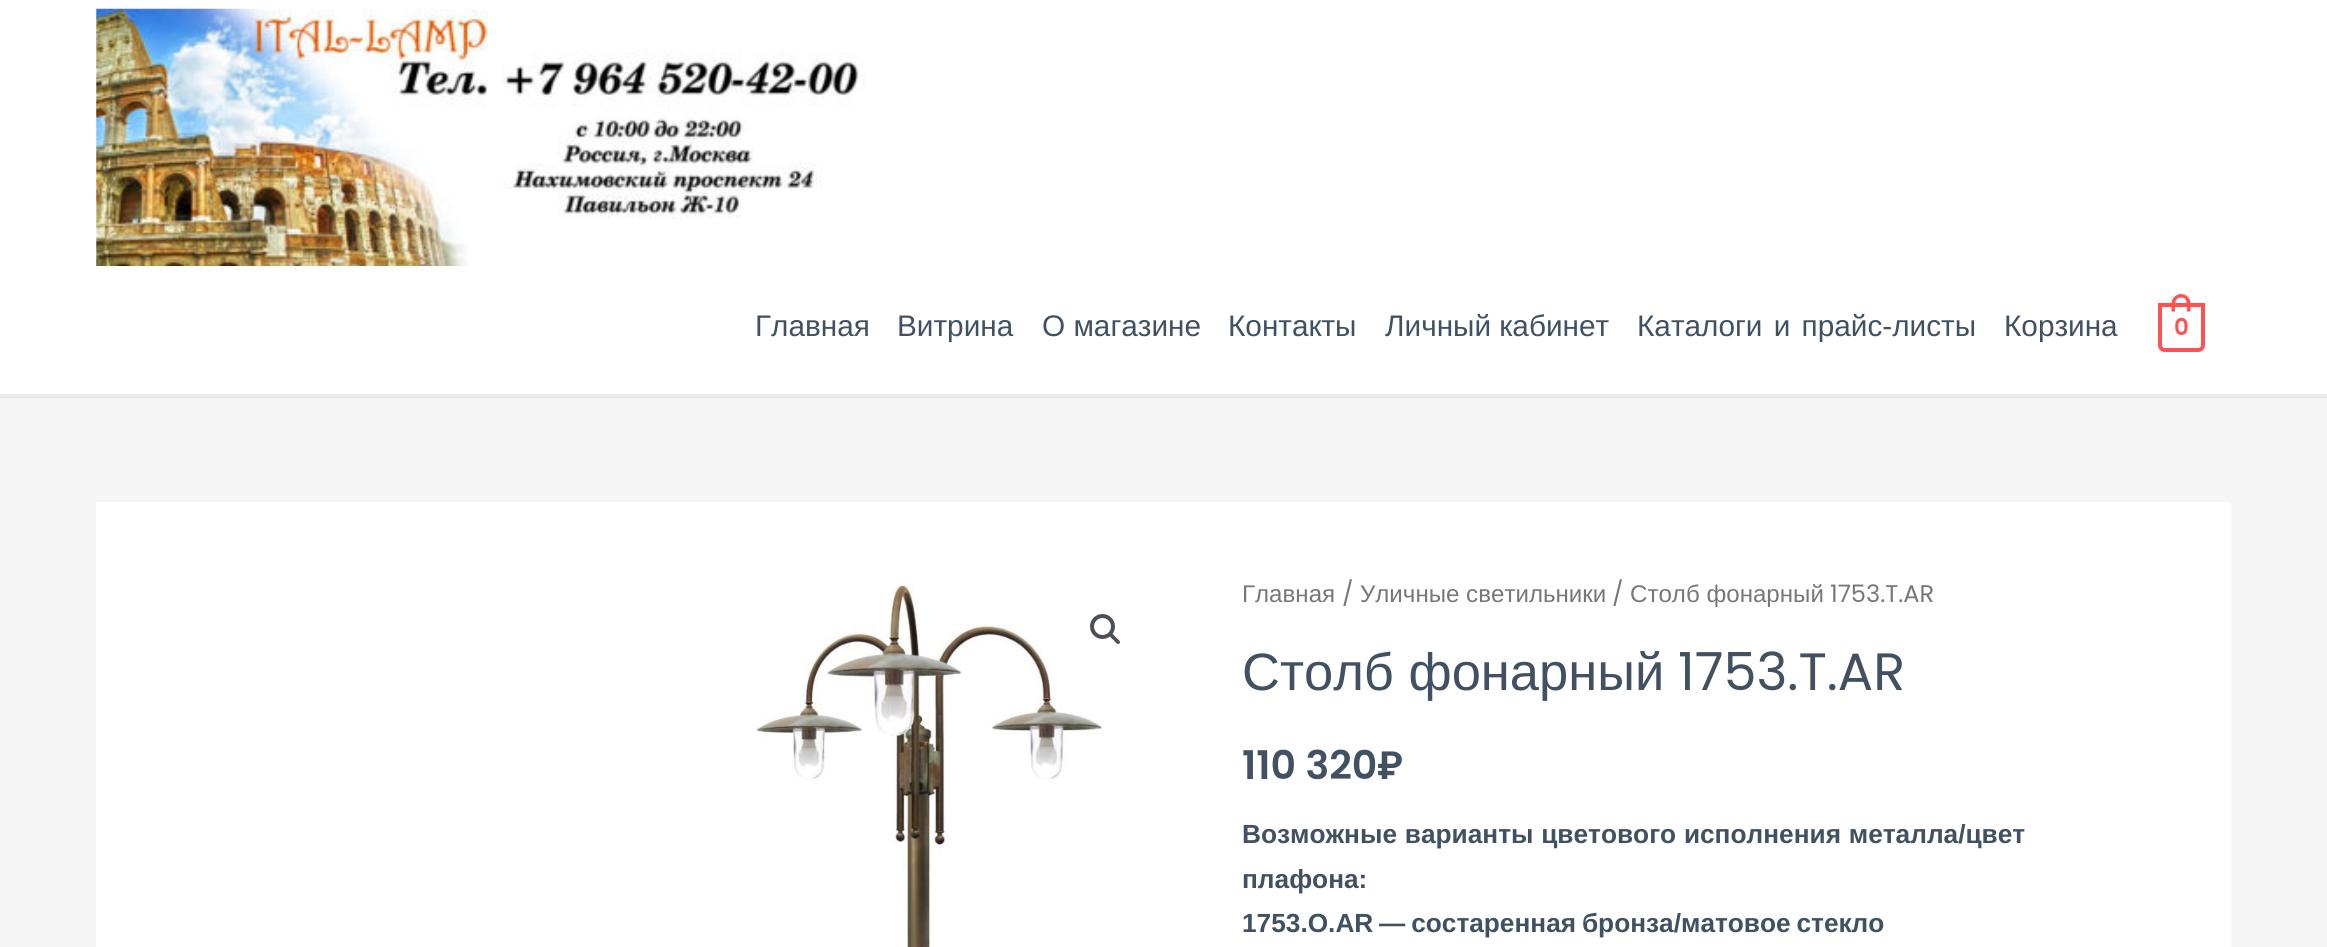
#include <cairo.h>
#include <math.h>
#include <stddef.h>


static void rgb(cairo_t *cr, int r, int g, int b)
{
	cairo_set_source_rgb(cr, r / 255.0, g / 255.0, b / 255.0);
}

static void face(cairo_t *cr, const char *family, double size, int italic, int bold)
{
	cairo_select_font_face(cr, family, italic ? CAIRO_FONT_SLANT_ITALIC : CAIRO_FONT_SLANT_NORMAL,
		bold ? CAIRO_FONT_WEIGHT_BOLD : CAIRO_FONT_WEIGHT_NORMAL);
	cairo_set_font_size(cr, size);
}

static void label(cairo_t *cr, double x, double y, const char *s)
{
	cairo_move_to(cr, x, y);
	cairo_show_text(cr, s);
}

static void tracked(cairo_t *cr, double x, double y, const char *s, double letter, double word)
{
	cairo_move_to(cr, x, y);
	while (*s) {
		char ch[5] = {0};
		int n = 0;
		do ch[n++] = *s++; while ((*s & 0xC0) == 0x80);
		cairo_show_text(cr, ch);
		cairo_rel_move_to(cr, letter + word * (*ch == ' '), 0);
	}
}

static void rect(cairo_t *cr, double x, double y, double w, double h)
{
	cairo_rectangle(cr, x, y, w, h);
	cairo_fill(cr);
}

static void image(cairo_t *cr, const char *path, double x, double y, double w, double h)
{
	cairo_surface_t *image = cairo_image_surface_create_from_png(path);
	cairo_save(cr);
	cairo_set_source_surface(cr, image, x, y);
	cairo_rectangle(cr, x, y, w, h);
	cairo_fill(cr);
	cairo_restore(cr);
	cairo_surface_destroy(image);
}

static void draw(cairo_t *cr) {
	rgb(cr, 245, 245, 245);
	cairo_paint(cr);
	rgb(cr, 228, 228, 228);
	rect(cr, 0, 397, 2327, 1);
	rgb(cr, 255, 255, 255);
	rect(cr, 0, 0, 2327, 394);
	rgb(cr, 237, 237, 237);
	rect(cr, 0, 394, 2327, 3);
	image(cr, "image0.png", 96, 8, 770, 258);
	face(cr, "Liberation Sans", 29.75, 0, 0);
	rgb(cr, 65, 81, 97);
	label(cr, 755, 336, "Главная");
	label(cr, 897, 336, "Витрина");
	label(cr, 1042, 336, "О магазине");
	label(cr, 1228, 336, "Контакты");
	label(cr, 1385, 336, "Личный кабинет");
	tracked(cr, 1637, 336, "Каталоги и прайс-листы", 0, 3);
	label(cr, 2004, 336, "Корзина");
	cairo_new_path(cr);
	cairo_move_to(cr, 2160, 305);
	cairo_line_to(cr, 2203, 305);
	cairo_line_to(cr, 2203, 345);
	cairo_curve_to(cr, 2203, 348, 2201, 350, 2198, 350);
	cairo_line_to(cr, 2165, 350);
	cairo_curve_to(cr, 2162, 350, 2160, 348, 2160, 345);
	cairo_close_path(cr);
	rgb(cr, 255, 81, 81);
	cairo_set_line_width(cr, 4);
	cairo_stroke(cr);
	cairo_set_fill_rule(cr, CAIRO_FILL_RULE_EVEN_ODD);
	cairo_new_path(cr);
	cairo_move_to(cr, 2181, 294);
	cairo_curve_to(cr, 2186.5, 294, 2190.5, 298.5, 2190.5, 303.5);
	cairo_line_to(cr, 2190.5, 311.5);
	cairo_line_to(cr, 2171.5, 311.5);
	cairo_line_to(cr, 2171.5, 303.5);
	cairo_curve_to(cr, 2171.5, 298.5, 2176, 294, 2181, 294);
	cairo_close_path(cr);
	cairo_move_to(cr, 2181, 297.5);
	cairo_curve_to(cr, 2188.5, 297.5, 2187, 306.5, 2187, 311.5);
	cairo_line_to(cr, 2175, 311.5);
	cairo_curve_to(cr, 2175, 306.5, 2173.5, 297.5, 2181, 297.5);
	cairo_close_path(cr);
	cairo_fill(cr);
	face(cr, "Poppins SemiBold", 23, 0, 0);
	label(cr, 2174, 335, "0");
	rgb(cr, 255, 255, 255);
	rect(cr, 96, 502, 2135, 445);
	image(cr, "image1.png", 756, 584, 348, 363);
	cairo_arc(cr, 1102.5, 626.5, 10.5, 0, 2 * M_PI);
	rgb(cr, 75, 79, 88);
	cairo_stroke(cr);
	cairo_set_fill_rule(cr, CAIRO_FILL_RULE_WINDING);
	cairo_new_path(cr);
	cairo_move_to(cr, 1110, 634);
	cairo_curve_to(cr, 1112, 632, 1115, 636.5, 1116, 637.5);
	cairo_curve_to(cr, 1117, 638.5, 1121.5, 641.5, 1119.5, 643.5);
	cairo_curve_to(cr, 1117.5, 645.5, 1114.5, 641, 1113.5, 640);
	cairo_curve_to(cr, 1112.5, 639, 1108, 636, 1110, 634);
	cairo_close_path(cr);
	cairo_fill(cr);
	face(cr, "Liberation Sans", 24.1, 0, 0);
	rgb(cr, 119, 119, 119);
	label(cr, 1242, 602, "Главная");
	face(cr, "Poppins", 24.1, 0, 0);
	label(cr, 1342, 602, "/");
	face(cr, "Liberation Sans", 24.1, 0, 0);
	label(cr, 1360, 602, "Уличные светильники");
	face(cr, "Poppins", 24.1, 0, 0);
	label(cr, 1612, 602, "/");
	face(cr, "Liberation Sans", 24.1, 0, 0);
	label(cr, 1630, 602, "Столб фонарный");
	face(cr, "Poppins", 24.1, 0, 0);
	label(cr, 1830, 602, "1753.T.AR");
	face(cr, "Liberation Sans", 52.5, 0, 0);
	rgb(cr, 65, 81, 97);
	label(cr, 1242, 690, "Столб фонарный");
	face(cr, "Poppins", 52.5, 0, 0);
	label(cr, 1678, 690, "1753.T.AR");
	face(cr, "Poppins SemiBold", 39.5, 0, 0);
	label(cr, 1242, 779, "110 320₽");
	face(cr, "Liberation Sans", 26.25, 0, 1);
	tracked(cr, 1242, 843, "Возможные варианты цветового исполнения металла/цвет", 0, 0.5);
	label(cr, 1242, 888, "плафона:");
	tracked(cr, 1242, 932, "1753.O.AR — состаренная бронза/матовое стекло", 0, -1.5);
}

int main(void) {
	cairo_surface_t *surface = cairo_image_surface_create(CAIRO_FORMAT_RGB24, 2327, 947);
	cairo_t *cr = cairo_create(surface);
	cairo_font_options_t *options = cairo_font_options_create();
	cairo_font_options_set_hint_metrics(options, CAIRO_HINT_METRICS_OFF);
	cairo_font_options_set_hint_style(options, CAIRO_HINT_STYLE_NONE);
	cairo_set_font_options(cr, options);
	cairo_set_miter_limit(cr, 4);
	draw(cr);
	cairo_surface_write_to_png(surface, "render.png");
	cairo_font_options_destroy(options);
	cairo_destroy(cr);
	cairo_surface_destroy(surface);
	return 0;
}
